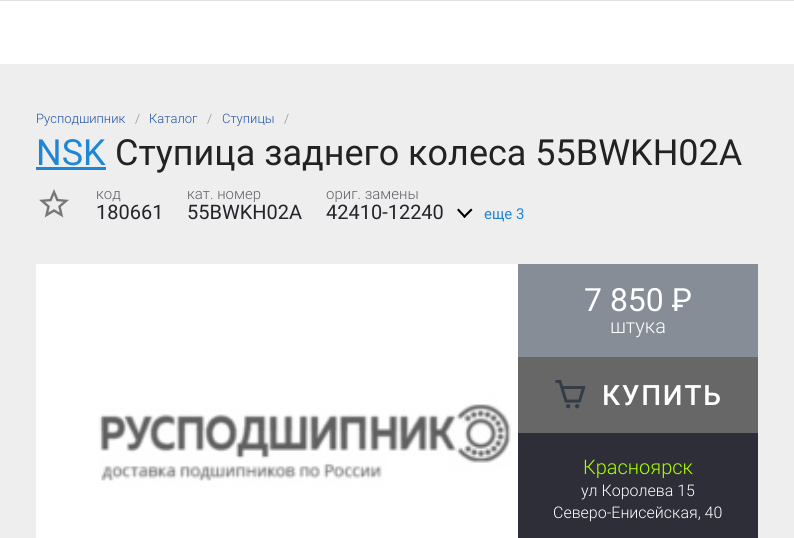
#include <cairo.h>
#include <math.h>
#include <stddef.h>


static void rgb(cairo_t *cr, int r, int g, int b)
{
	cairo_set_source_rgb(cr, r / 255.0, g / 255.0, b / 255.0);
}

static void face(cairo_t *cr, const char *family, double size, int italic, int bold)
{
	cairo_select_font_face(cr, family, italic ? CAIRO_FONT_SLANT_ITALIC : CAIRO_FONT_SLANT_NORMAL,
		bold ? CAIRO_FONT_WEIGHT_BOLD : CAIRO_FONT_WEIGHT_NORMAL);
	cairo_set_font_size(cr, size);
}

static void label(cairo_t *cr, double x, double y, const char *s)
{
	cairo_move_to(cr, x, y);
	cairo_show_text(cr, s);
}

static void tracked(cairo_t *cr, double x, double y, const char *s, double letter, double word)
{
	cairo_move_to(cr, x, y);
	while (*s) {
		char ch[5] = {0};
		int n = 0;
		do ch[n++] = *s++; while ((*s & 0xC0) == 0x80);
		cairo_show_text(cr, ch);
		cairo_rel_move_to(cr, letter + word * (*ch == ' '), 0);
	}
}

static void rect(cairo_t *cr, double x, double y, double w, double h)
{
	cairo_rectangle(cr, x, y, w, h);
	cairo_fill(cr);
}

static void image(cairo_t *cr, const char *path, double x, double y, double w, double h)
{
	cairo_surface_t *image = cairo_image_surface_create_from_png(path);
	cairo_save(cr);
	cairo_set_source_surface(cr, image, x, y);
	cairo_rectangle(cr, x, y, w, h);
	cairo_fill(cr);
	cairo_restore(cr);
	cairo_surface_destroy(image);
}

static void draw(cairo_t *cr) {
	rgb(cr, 238, 238, 238);
	cairo_paint(cr);
	rgb(cr, 255, 255, 255);
	rect(cr, 0, 1, 794, 63);
	rgb(cr, 223, 223, 223);
	rect(cr, 0, 0, 794, 1);
	face(cr, "Roboto Light", 13, 0, 0);
	rgb(cr, 34, 82, 164);
	label(cr, 36, 123, "Русподшипник");
	rgb(cr, 141, 139, 146);
	label(cr, 135, 123, "/");
	rgb(cr, 34, 82, 164);
	label(cr, 149, 123, "Каталог");
	rgb(cr, 141, 139, 146);
	label(cr, 207, 123, "/");
	rgb(cr, 34, 82, 164);
	label(cr, 222, 123, "Ступицы");
	rgb(cr, 141, 139, 146);
	label(cr, 284, 123, "/");
	face(cr, "Roboto", 36, 0, 0);
	rgb(cr, 29, 135, 214);
	label(cr, 36, 165, "NSK");
	rect(cr, 36, 167, 70, 3);
	rgb(cr, 34, 34, 34);
	label(cr, 115, 165, "Ступица заднего колеса 55BWKH02A");
	image(cr, "image0.png", 39, 189, 30, 29);
	face(cr, "Roboto Light", 15, 0, 0);
	rgb(cr, 95, 96, 103);
	label(cr, 96, 199, "код");
	face(cr, "Roboto", 20, 0, 0);
	rgb(cr, 35, 35, 42);
	label(cr, 96, 219, "180661");
	face(cr, "Roboto Light", 15, 0, 0);
	rgb(cr, 95, 96, 103);
	label(cr, 187, 199, "кат. номер");
	face(cr, "Roboto", 20, 0, 0);
	rgb(cr, 35, 35, 42);
	label(cr, 187, 219, "55BWKH02A");
	face(cr, "Roboto Light", 15, 0, 0);
	rgb(cr, 95, 96, 103);
	label(cr, 326, 199, "ориг. замены");
	face(cr, "Roboto", 20, 0, 0);
	rgb(cr, 35, 35, 42);
	label(cr, 326, 219, "42410-12240");
	rgb(cr, 0, 0, 0);
	cairo_new_path(cr);
	cairo_move_to(cr, 471, 208.5);
	cairo_line_to(cr, 472.5, 210);
	cairo_line_to(cr, 464.5, 218);
	cairo_line_to(cr, 463, 216.5);
	cairo_close_path(cr);
	cairo_fill(cr);
	cairo_new_path(cr);
	cairo_move_to(cr, 458.5, 208.5);
	cairo_line_to(cr, 466, 216.5);
	cairo_line_to(cr, 464.5, 218);
	cairo_line_to(cr, 457, 210);
	cairo_close_path(cr);
	cairo_fill(cr);
	face(cr, "Roboto", 15, 0, 0);
	rgb(cr, 29, 135, 214);
	label(cr, 484, 219, "еще 3");
	image(cr, "image1.png", 36, 264, 482, 274);
	rgb(cr, 134, 141, 150);
	rect(cr, 518, 264, 240, 93);
	face(cr, "Roboto", 32, 0, 0);
	rgb(cr, 255, 255, 255);
	label(cr, 584, 311, "7 850 ₽");
	face(cr, "Roboto Light", 20, 0, 0);
	label(cr, 610, 333, "штука");
	rgb(cr, 103, 103, 103);
	rect(cr, 518, 357, 240, 76);
	image(cr, "image2.png", 555, 380, 31, 29);
	face(cr, "Roboto Medium", 28, 0, 0);
	rgb(cr, 255, 255, 255);
	tracked(cr, 602, 405, "КУПИТЬ", 1.75, 0);
	rgb(cr, 46, 46, 56);
	rect(cr, 518, 433, 240, 105);
	face(cr, "Roboto Light", 20, 0, 0);
	rgb(cr, 168, 255, 0);
	label(cr, 583, 474, "Красноярск");
	face(cr, "Roboto Light", 16, 0, 0);
	rgb(cr, 255, 255, 255);
	label(cr, 581, 496, "ул Королева 15");
	label(cr, 553, 518, "Северо-Енисейская, 40");
}

int main(void) {
	cairo_surface_t *surface = cairo_image_surface_create(CAIRO_FORMAT_RGB24, 794, 538);
	cairo_t *cr = cairo_create(surface);
	cairo_font_options_t *options = cairo_font_options_create();
	cairo_font_options_set_hint_metrics(options, CAIRO_HINT_METRICS_OFF);
	cairo_font_options_set_hint_style(options, CAIRO_HINT_STYLE_NONE);
	cairo_set_font_options(cr, options);
	cairo_set_miter_limit(cr, 4);
	draw(cr);
	cairo_surface_write_to_png(surface, "render.png");
	cairo_font_options_destroy(options);
	cairo_destroy(cr);
	cairo_surface_destroy(surface);
	return 0;
}
